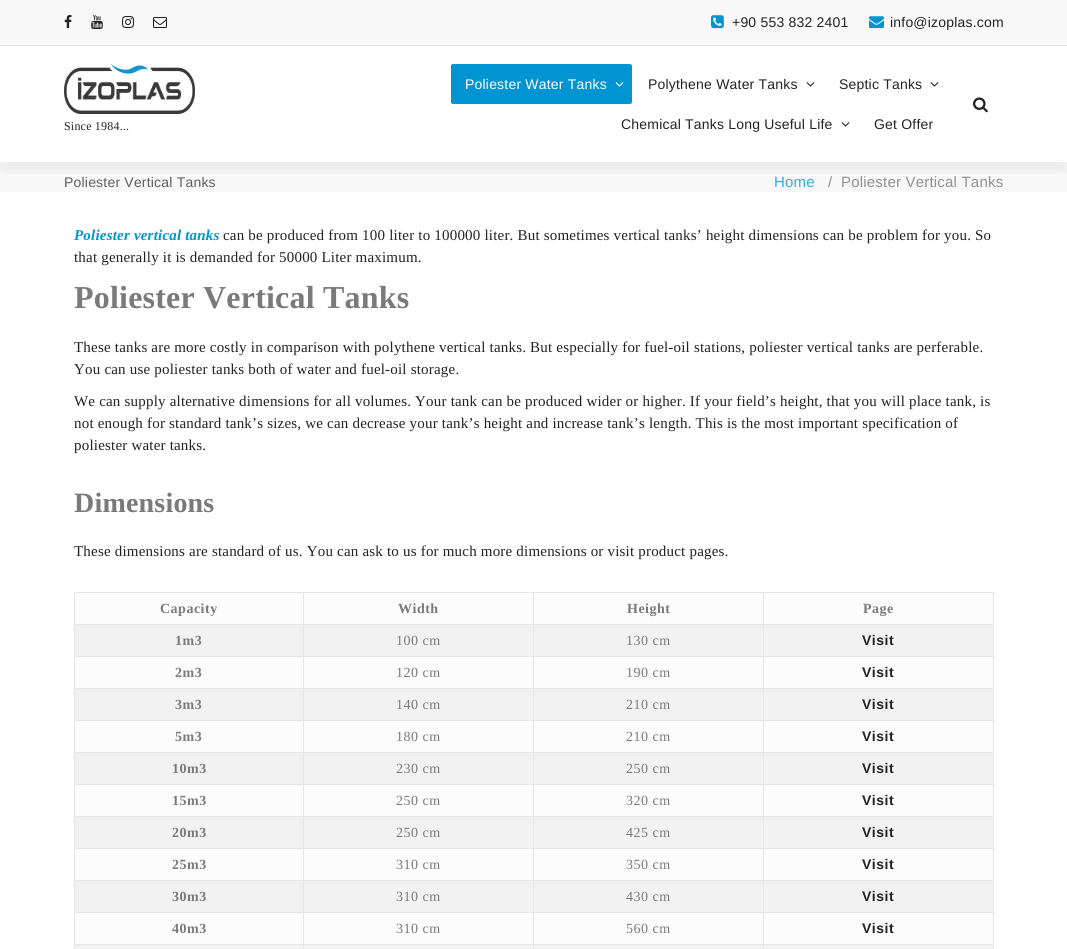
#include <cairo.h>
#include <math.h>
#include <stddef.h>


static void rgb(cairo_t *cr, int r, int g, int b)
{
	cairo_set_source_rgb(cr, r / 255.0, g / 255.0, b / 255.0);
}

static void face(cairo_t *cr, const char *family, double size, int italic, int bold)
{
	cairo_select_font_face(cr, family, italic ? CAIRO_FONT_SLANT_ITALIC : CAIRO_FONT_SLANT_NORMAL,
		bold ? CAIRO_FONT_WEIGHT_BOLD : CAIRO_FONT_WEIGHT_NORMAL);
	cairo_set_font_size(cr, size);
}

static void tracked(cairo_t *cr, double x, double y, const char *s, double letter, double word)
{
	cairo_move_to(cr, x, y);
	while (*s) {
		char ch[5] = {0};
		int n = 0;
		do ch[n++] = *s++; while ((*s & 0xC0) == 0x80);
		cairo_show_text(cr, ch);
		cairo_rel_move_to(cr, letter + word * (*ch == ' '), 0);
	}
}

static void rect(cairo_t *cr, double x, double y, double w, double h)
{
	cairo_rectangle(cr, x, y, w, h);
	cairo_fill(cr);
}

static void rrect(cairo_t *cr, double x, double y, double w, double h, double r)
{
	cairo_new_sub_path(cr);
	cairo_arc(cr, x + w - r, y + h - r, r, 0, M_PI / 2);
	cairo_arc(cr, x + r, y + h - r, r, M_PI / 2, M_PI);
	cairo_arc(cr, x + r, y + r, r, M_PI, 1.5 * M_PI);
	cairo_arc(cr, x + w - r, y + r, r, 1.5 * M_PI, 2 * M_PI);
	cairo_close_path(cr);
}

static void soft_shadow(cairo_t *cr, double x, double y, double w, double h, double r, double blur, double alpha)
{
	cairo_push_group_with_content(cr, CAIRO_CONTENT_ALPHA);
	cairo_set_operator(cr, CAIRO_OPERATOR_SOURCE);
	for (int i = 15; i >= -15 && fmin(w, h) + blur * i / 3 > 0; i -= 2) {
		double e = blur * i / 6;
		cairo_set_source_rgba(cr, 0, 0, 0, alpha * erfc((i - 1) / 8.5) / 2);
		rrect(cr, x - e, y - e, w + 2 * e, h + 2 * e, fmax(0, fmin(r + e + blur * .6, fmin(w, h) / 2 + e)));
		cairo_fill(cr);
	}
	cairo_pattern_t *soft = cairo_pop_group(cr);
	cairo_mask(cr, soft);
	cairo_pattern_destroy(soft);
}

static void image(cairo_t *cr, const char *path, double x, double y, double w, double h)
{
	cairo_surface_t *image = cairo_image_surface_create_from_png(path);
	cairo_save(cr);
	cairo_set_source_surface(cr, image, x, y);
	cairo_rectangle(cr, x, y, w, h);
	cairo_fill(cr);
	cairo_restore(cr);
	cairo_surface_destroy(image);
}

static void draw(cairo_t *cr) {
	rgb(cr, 255, 255, 255);
	cairo_paint(cr);
	rgb(cr, 248, 248, 248);
	rect(cr, 0, 162, 1067, 30);
	cairo_save(cr);
	cairo_rectangle(cr, 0, 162, 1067, 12);
	cairo_clip(cr);
	rgb(cr, 0, 0, 0);
	soft_shadow(cr, 0, 56, 1067, 116, 0, 7.5, 0.05);
	cairo_restore(cr);
	rgb(cr, 249, 249, 249);
	rect(cr, 0, 0, 1067, 45);
	rgb(cr, 229, 229, 229);
	rect(cr, 0, 45, 1067, 1);
	image(cr, "image0.png", 64, 15, 8, 13);
	image(cr, "image1.png", 91, 15, 12, 14);
	image(cr, "image2.png", 122, 16, 12, 12);
	image(cr, "image3.png", 153, 17, 14, 11);
	image(cr, "image4.png", 711, 15, 13, 14);
	face(cr, "Liberation Sans", 14, 0, 0);
	rgb(cr, 34, 34, 34);
	tracked(cr, 732, 27, "+90 553 832 2401", 0.2, 0);
	image(cr, "image5.png", 869, 16, 15, 13);
	tracked(cr, 890, 27, "info@izoplas.com", 0.2, 0);
	image(cr, "image6.png", 64, 64, 131, 50);
	face(cr, "Liberation Serif", 12, 0, 0);
	tracked(cr, 64, 130, "Since 1984...", 0.2, 0);
	rgb(cr, 0, 148, 211);
	rrect(cr, 451, 64, 181, 40, 2);
	cairo_fill(cr);
	face(cr, "Liberation Sans", 14, 0, 0);
	rgb(cr, 255, 255, 255);
	tracked(cr, 465, 89, "Poliester Water Tanks", 0.2, 0);
	image(cr, "image7.png", 615, 82, 9, 5);
	rgb(cr, 34, 34, 34);
	tracked(cr, 648, 89, "Polythene Water Tanks", 0.2, 0);
	image(cr, "image8.png", 806, 82, 9, 5);
	tracked(cr, 839, 89, "Septic Tanks", 0.2, 0);
	image(cr, "image8.png", 930, 82, 9, 5);
	tracked(cr, 621, 129, "Chemical Tanks Long Useful Life", 0.2, 0);
	image(cr, "image8.png", 841, 122, 9, 5);
	tracked(cr, 874, 129, "Get Offer", 0.2, 0);
	image(cr, "image9.png", 973, 97, 15, 16);
	rgb(cr, 94, 94, 94);
	tracked(cr, 64, 187, "Poliester Vertical Tanks", 0.2, 0);
	face(cr, "Liberation Sans", 15, 0, 0);
	rgb(cr, 54, 170, 220);
	tracked(cr, 774, 187, "Home", 0.2, 0);
	rgb(cr, 145, 145, 145);
	tracked(cr, 828, 187, "/", 0.2, 0);
	tracked(cr, 841, 187, "Poliester Vertical Tanks", 0.2, 0);
	face(cr, "Liberation Serif", 15, 1, 1);
	rgb(cr, 0, 148, 211);
	tracked(cr, 74, 240, "Poliester vertical tanks", 0.2, 0);
	face(cr, "Liberation Serif", 15, 0, 0);
	rgb(cr, 34, 34, 34);
	tracked(cr, 223, 240, "can be produced from 100 liter to 100000 liter. But sometimes vertical tanks’ height dimensions can be problem for you. So", 0.2, 0);
	tracked(cr, 74, 262, "that generally it is demanded for 50000 Liter maximum.", 0.2, 0);
	face(cr, "Liberation Serif", 32, 0, 1);
	rgb(cr, 122, 122, 122);
	tracked(cr, 74, 308, "Poliester Vertical Tanks", 0.2, 0);
	face(cr, "Liberation Serif", 15, 0, 0);
	rgb(cr, 34, 34, 34);
	tracked(cr, 74, 352, "These tanks are more costly in comparison with polythene vertical tanks. But especially for fuel-oil stations, poliester vertical tanks are perferable.", 0.2, 0);
	tracked(cr, 74, 374, "You can use poliester tanks both of water and fuel-oil storage.", 0.2, 0);
	tracked(cr, 74, 406, "We can supply alternative dimensions for all volumes. Your tank can be produced wider or higher. If your field’s height, that you will place tank, is", 0.2, 0);
	tracked(cr, 74, 428, "not enough for standard tank’s sizes, we can decrease your tank’s height and increase tank’s length. This is the most important specification of", 0.2, 0);
	tracked(cr, 74, 450, "poliester water tanks.", 0.2, 0);
	face(cr, "Liberation Serif", 28, 0, 1);
	rgb(cr, 122, 122, 122);
	tracked(cr, 74, 512, "Dimensions", 0.2, 0);
	face(cr, "Liberation Serif", 15, 0, 0);
	rgb(cr, 34, 34, 34);
	tracked(cr, 74, 556, "These dimensions are standard of us. You can ask to us for much more dimensions or visit product pages.", 0.2, 0);
	rgb(cr, 252, 252, 252);
	rect(cr, 75, 593, 918, 351);
	rgb(cr, 232, 231, 231);
	rect(cr, 763, 592, 231, 1);
	rect(cr, 763, 624, 231, 1);
	rgb(cr, 242, 242, 242);
	rect(cr, 75, 625, 918, 31);
	rgb(cr, 232, 231, 231);
	rect(cr, 763, 656, 231, 1);
	rect(cr, 763, 688, 231, 1);
	rgb(cr, 242, 242, 242);
	rect(cr, 75, 689, 918, 31);
	rgb(cr, 232, 231, 231);
	rect(cr, 763, 720, 231, 1);
	rect(cr, 763, 752, 231, 1);
	rgb(cr, 242, 242, 242);
	rect(cr, 75, 753, 918, 31);
	rgb(cr, 232, 231, 231);
	rect(cr, 763, 784, 231, 1);
	rect(cr, 763, 816, 231, 1);
	rgb(cr, 242, 242, 242);
	rect(cr, 75, 817, 918, 31);
	rgb(cr, 232, 231, 231);
	rect(cr, 763, 848, 231, 1);
	rect(cr, 763, 880, 231, 1);
	rgb(cr, 242, 242, 242);
	rect(cr, 75, 881, 918, 31);
	rgb(cr, 232, 231, 231);
	rect(cr, 763, 912, 231, 1);
	rect(cr, 763, 944, 231, 1);
	rgb(cr, 242, 242, 242);
	rect(cr, 74, 945, 919, 4);
	rgb(cr, 232, 231, 231);
	rect(cr, 763, 944, 1, 5);
	rect(cr, 533, 944, 231, 1);
	rect(cr, 763, 912, 1, 33);
	rect(cr, 533, 912, 231, 1);
	rect(cr, 763, 880, 1, 33);
	rect(cr, 533, 880, 231, 1);
	rect(cr, 763, 848, 1, 33);
	rect(cr, 533, 848, 231, 1);
	rect(cr, 763, 816, 1, 33);
	rect(cr, 533, 816, 231, 1);
	rect(cr, 763, 784, 1, 33);
	rect(cr, 533, 784, 231, 1);
	rect(cr, 763, 752, 1, 33);
	rect(cr, 533, 752, 231, 1);
	rect(cr, 763, 720, 1, 33);
	rect(cr, 533, 720, 231, 1);
	rect(cr, 763, 688, 1, 33);
	rect(cr, 533, 688, 231, 1);
	rect(cr, 763, 656, 1, 33);
	rect(cr, 533, 656, 231, 1);
	rect(cr, 763, 624, 1, 33);
	rect(cr, 533, 624, 231, 1);
	rect(cr, 763, 592, 1, 33);
	rect(cr, 533, 592, 231, 1);
	rect(cr, 533, 944, 1, 5);
	rect(cr, 303, 944, 231, 1);
	rect(cr, 533, 912, 1, 33);
	rect(cr, 303, 912, 231, 1);
	rect(cr, 533, 880, 1, 33);
	rect(cr, 303, 880, 231, 1);
	rect(cr, 533, 848, 1, 33);
	rect(cr, 303, 848, 231, 1);
	rect(cr, 533, 816, 1, 33);
	rect(cr, 303, 816, 231, 1);
	rect(cr, 533, 784, 1, 33);
	rect(cr, 303, 784, 231, 1);
	rect(cr, 533, 752, 1, 33);
	rect(cr, 303, 752, 231, 1);
	rect(cr, 533, 720, 1, 33);
	rect(cr, 303, 720, 231, 1);
	rect(cr, 533, 688, 1, 33);
	rect(cr, 303, 688, 231, 1);
	rect(cr, 533, 656, 1, 33);
	rect(cr, 303, 656, 231, 1);
	rect(cr, 533, 624, 1, 33);
	rect(cr, 303, 624, 231, 1);
	rect(cr, 533, 592, 1, 33);
	rect(cr, 303, 592, 231, 1);
	rect(cr, 303, 944, 1, 5);
	rect(cr, 74, 944, 230, 1);
	rect(cr, 303, 912, 1, 33);
	rect(cr, 74, 912, 230, 1);
	rect(cr, 303, 880, 1, 33);
	rect(cr, 74, 880, 230, 1);
	rect(cr, 303, 848, 1, 33);
	rect(cr, 74, 848, 230, 1);
	rect(cr, 303, 816, 1, 33);
	rect(cr, 74, 816, 230, 1);
	rect(cr, 303, 784, 1, 33);
	rect(cr, 74, 784, 230, 1);
	rect(cr, 303, 752, 1, 33);
	rect(cr, 74, 752, 230, 1);
	rect(cr, 303, 720, 1, 33);
	rect(cr, 74, 720, 230, 1);
	rect(cr, 303, 688, 1, 33);
	rect(cr, 74, 688, 230, 1);
	rect(cr, 303, 656, 1, 33);
	rect(cr, 74, 656, 230, 1);
	rect(cr, 303, 624, 1, 33);
	rect(cr, 74, 624, 230, 1);
	rect(cr, 303, 592, 1, 33);
	rect(cr, 74, 592, 230, 1);
	rect(cr, 74, 944, 1, 5);
	rect(cr, 74, 912, 1, 33);
	rect(cr, 74, 880, 1, 33);
	rect(cr, 74, 848, 1, 33);
	rect(cr, 74, 816, 1, 33);
	rect(cr, 74, 784, 1, 33);
	rect(cr, 74, 752, 1, 33);
	rect(cr, 74, 720, 1, 33);
	rect(cr, 74, 688, 1, 33);
	rect(cr, 74, 656, 1, 33);
	rect(cr, 74, 624, 1, 33);
	rect(cr, 74, 592, 1, 33);
	face(cr, "Liberation Serif", 14, 0, 1);
	rgb(cr, 122, 122, 122);
	tracked(cr, 160, 613, "Capacity", 0.5, 0);
	tracked(cr, 398, 613, "Width", 0.5, 0);
	tracked(cr, 627, 613, "Height", 0.5, 0);
	rgb(cr, 232, 231, 231);
	rect(cr, 993, 944, 1, 5);
	rect(cr, 993, 912, 1, 33);
	rect(cr, 993, 880, 1, 33);
	rect(cr, 993, 848, 1, 33);
	rect(cr, 993, 816, 1, 33);
	rect(cr, 993, 784, 1, 33);
	rect(cr, 993, 752, 1, 33);
	rect(cr, 993, 720, 1, 33);
	rect(cr, 993, 688, 1, 33);
	rect(cr, 993, 656, 1, 33);
	rect(cr, 993, 624, 1, 33);
	rect(cr, 993, 592, 1, 33);
	rgb(cr, 122, 122, 122);
	tracked(cr, 863, 613, "Page", 0.5, 0);
	tracked(cr, 175, 645, "1m3", 0.5, 0);
	face(cr, "Liberation Serif", 14, 0, 0);
	tracked(cr, 396, 645, "100 cm", 0.5, 0);
	tracked(cr, 626, 645, "130 cm", 0.5, 0);
	face(cr, "Liberation Sans", 14, 0, 1);
	rgb(cr, 34, 34, 34);
	tracked(cr, 862, 645, "Visit", 0.5, 0);
	face(cr, "Liberation Serif", 14, 0, 1);
	rgb(cr, 122, 122, 122);
	tracked(cr, 175, 677, "2m3", 0.5, 0);
	face(cr, "Liberation Serif", 14, 0, 0);
	tracked(cr, 396, 677, "120 cm", 0.5, 0);
	tracked(cr, 626, 677, "190 cm", 0.5, 0);
	face(cr, "Liberation Sans", 14, 0, 1);
	rgb(cr, 34, 34, 34);
	tracked(cr, 862, 677, "Visit", 0.5, 0);
	face(cr, "Liberation Serif", 14, 0, 1);
	rgb(cr, 122, 122, 122);
	tracked(cr, 175, 709, "3m3", 0.5, 0);
	face(cr, "Liberation Serif", 14, 0, 0);
	tracked(cr, 396, 709, "140 cm", 0.5, 0);
	tracked(cr, 626, 709, "210 cm", 0.5, 0);
	face(cr, "Liberation Sans", 14, 0, 1);
	rgb(cr, 34, 34, 34);
	tracked(cr, 862, 709, "Visit", 0.5, 0);
	face(cr, "Liberation Serif", 14, 0, 1);
	rgb(cr, 122, 122, 122);
	tracked(cr, 175, 741, "5m3", 0.5, 0);
	face(cr, "Liberation Serif", 14, 0, 0);
	tracked(cr, 396, 741, "180 cm", 0.5, 0);
	tracked(cr, 626, 741, "210 cm", 0.5, 0);
	face(cr, "Liberation Sans", 14, 0, 1);
	rgb(cr, 34, 34, 34);
	tracked(cr, 862, 741, "Visit", 0.5, 0);
	face(cr, "Liberation Serif", 14, 0, 1);
	rgb(cr, 122, 122, 122);
	tracked(cr, 172, 773, "10m3", 0.5, 0);
	face(cr, "Liberation Serif", 14, 0, 0);
	tracked(cr, 396, 773, "230 cm", 0.5, 0);
	tracked(cr, 626, 773, "250 cm", 0.5, 0);
	face(cr, "Liberation Sans", 14, 0, 1);
	rgb(cr, 34, 34, 34);
	tracked(cr, 862, 773, "Visit", 0.5, 0);
	face(cr, "Liberation Serif", 14, 0, 1);
	rgb(cr, 122, 122, 122);
	tracked(cr, 172, 805, "15m3", 0.5, 0);
	face(cr, "Liberation Serif", 14, 0, 0);
	tracked(cr, 396, 805, "250 cm", 0.5, 0);
	tracked(cr, 626, 805, "320 cm", 0.5, 0);
	face(cr, "Liberation Sans", 14, 0, 1);
	rgb(cr, 34, 34, 34);
	tracked(cr, 862, 805, "Visit", 0.5, 0);
	face(cr, "Liberation Serif", 14, 0, 1);
	rgb(cr, 122, 122, 122);
	tracked(cr, 172, 837, "20m3", 0.5, 0);
	face(cr, "Liberation Serif", 14, 0, 0);
	tracked(cr, 396, 837, "250 cm", 0.5, 0);
	tracked(cr, 626, 837, "425 cm", 0.5, 0);
	face(cr, "Liberation Sans", 14, 0, 1);
	rgb(cr, 34, 34, 34);
	tracked(cr, 862, 837, "Visit", 0.5, 0);
	face(cr, "Liberation Serif", 14, 0, 1);
	rgb(cr, 122, 122, 122);
	tracked(cr, 172, 869, "25m3", 0.5, 0);
	face(cr, "Liberation Serif", 14, 0, 0);
	tracked(cr, 396, 869, "310 cm", 0.5, 0);
	tracked(cr, 626, 869, "350 cm", 0.5, 0);
	face(cr, "Liberation Sans", 14, 0, 1);
	rgb(cr, 34, 34, 34);
	tracked(cr, 862, 869, "Visit", 0.5, 0);
	face(cr, "Liberation Serif", 14, 0, 1);
	rgb(cr, 122, 122, 122);
	tracked(cr, 172, 901, "30m3", 0.5, 0);
	face(cr, "Liberation Serif", 14, 0, 0);
	tracked(cr, 396, 901, "310 cm", 0.5, 0);
	tracked(cr, 626, 901, "430 cm", 0.5, 0);
	face(cr, "Liberation Sans", 14, 0, 1);
	rgb(cr, 34, 34, 34);
	tracked(cr, 862, 901, "Visit", 0.5, 0);
	face(cr, "Liberation Serif", 14, 0, 1);
	rgb(cr, 122, 122, 122);
	tracked(cr, 172, 933, "40m3", 0.5, 0);
	face(cr, "Liberation Serif", 14, 0, 0);
	tracked(cr, 396, 933, "310 cm", 0.5, 0);
	tracked(cr, 626, 933, "560 cm", 0.5, 0);
	face(cr, "Liberation Sans", 14, 0, 1);
	rgb(cr, 34, 34, 34);
	tracked(cr, 862, 933, "Visit", 0.5, 0);
}

int main(void) {
	cairo_surface_t *surface = cairo_image_surface_create(CAIRO_FORMAT_RGB24, 1067, 949);
	cairo_t *cr = cairo_create(surface);
	cairo_font_options_t *options = cairo_font_options_create();
	cairo_font_options_set_hint_metrics(options, CAIRO_HINT_METRICS_OFF);
	cairo_font_options_set_hint_style(options, CAIRO_HINT_STYLE_NONE);
	cairo_set_font_options(cr, options);
	cairo_set_miter_limit(cr, 4);
	draw(cr);
	cairo_surface_write_to_png(surface, "render.png");
	cairo_font_options_destroy(options);
	cairo_destroy(cr);
	cairo_surface_destroy(surface);
	return 0;
}
